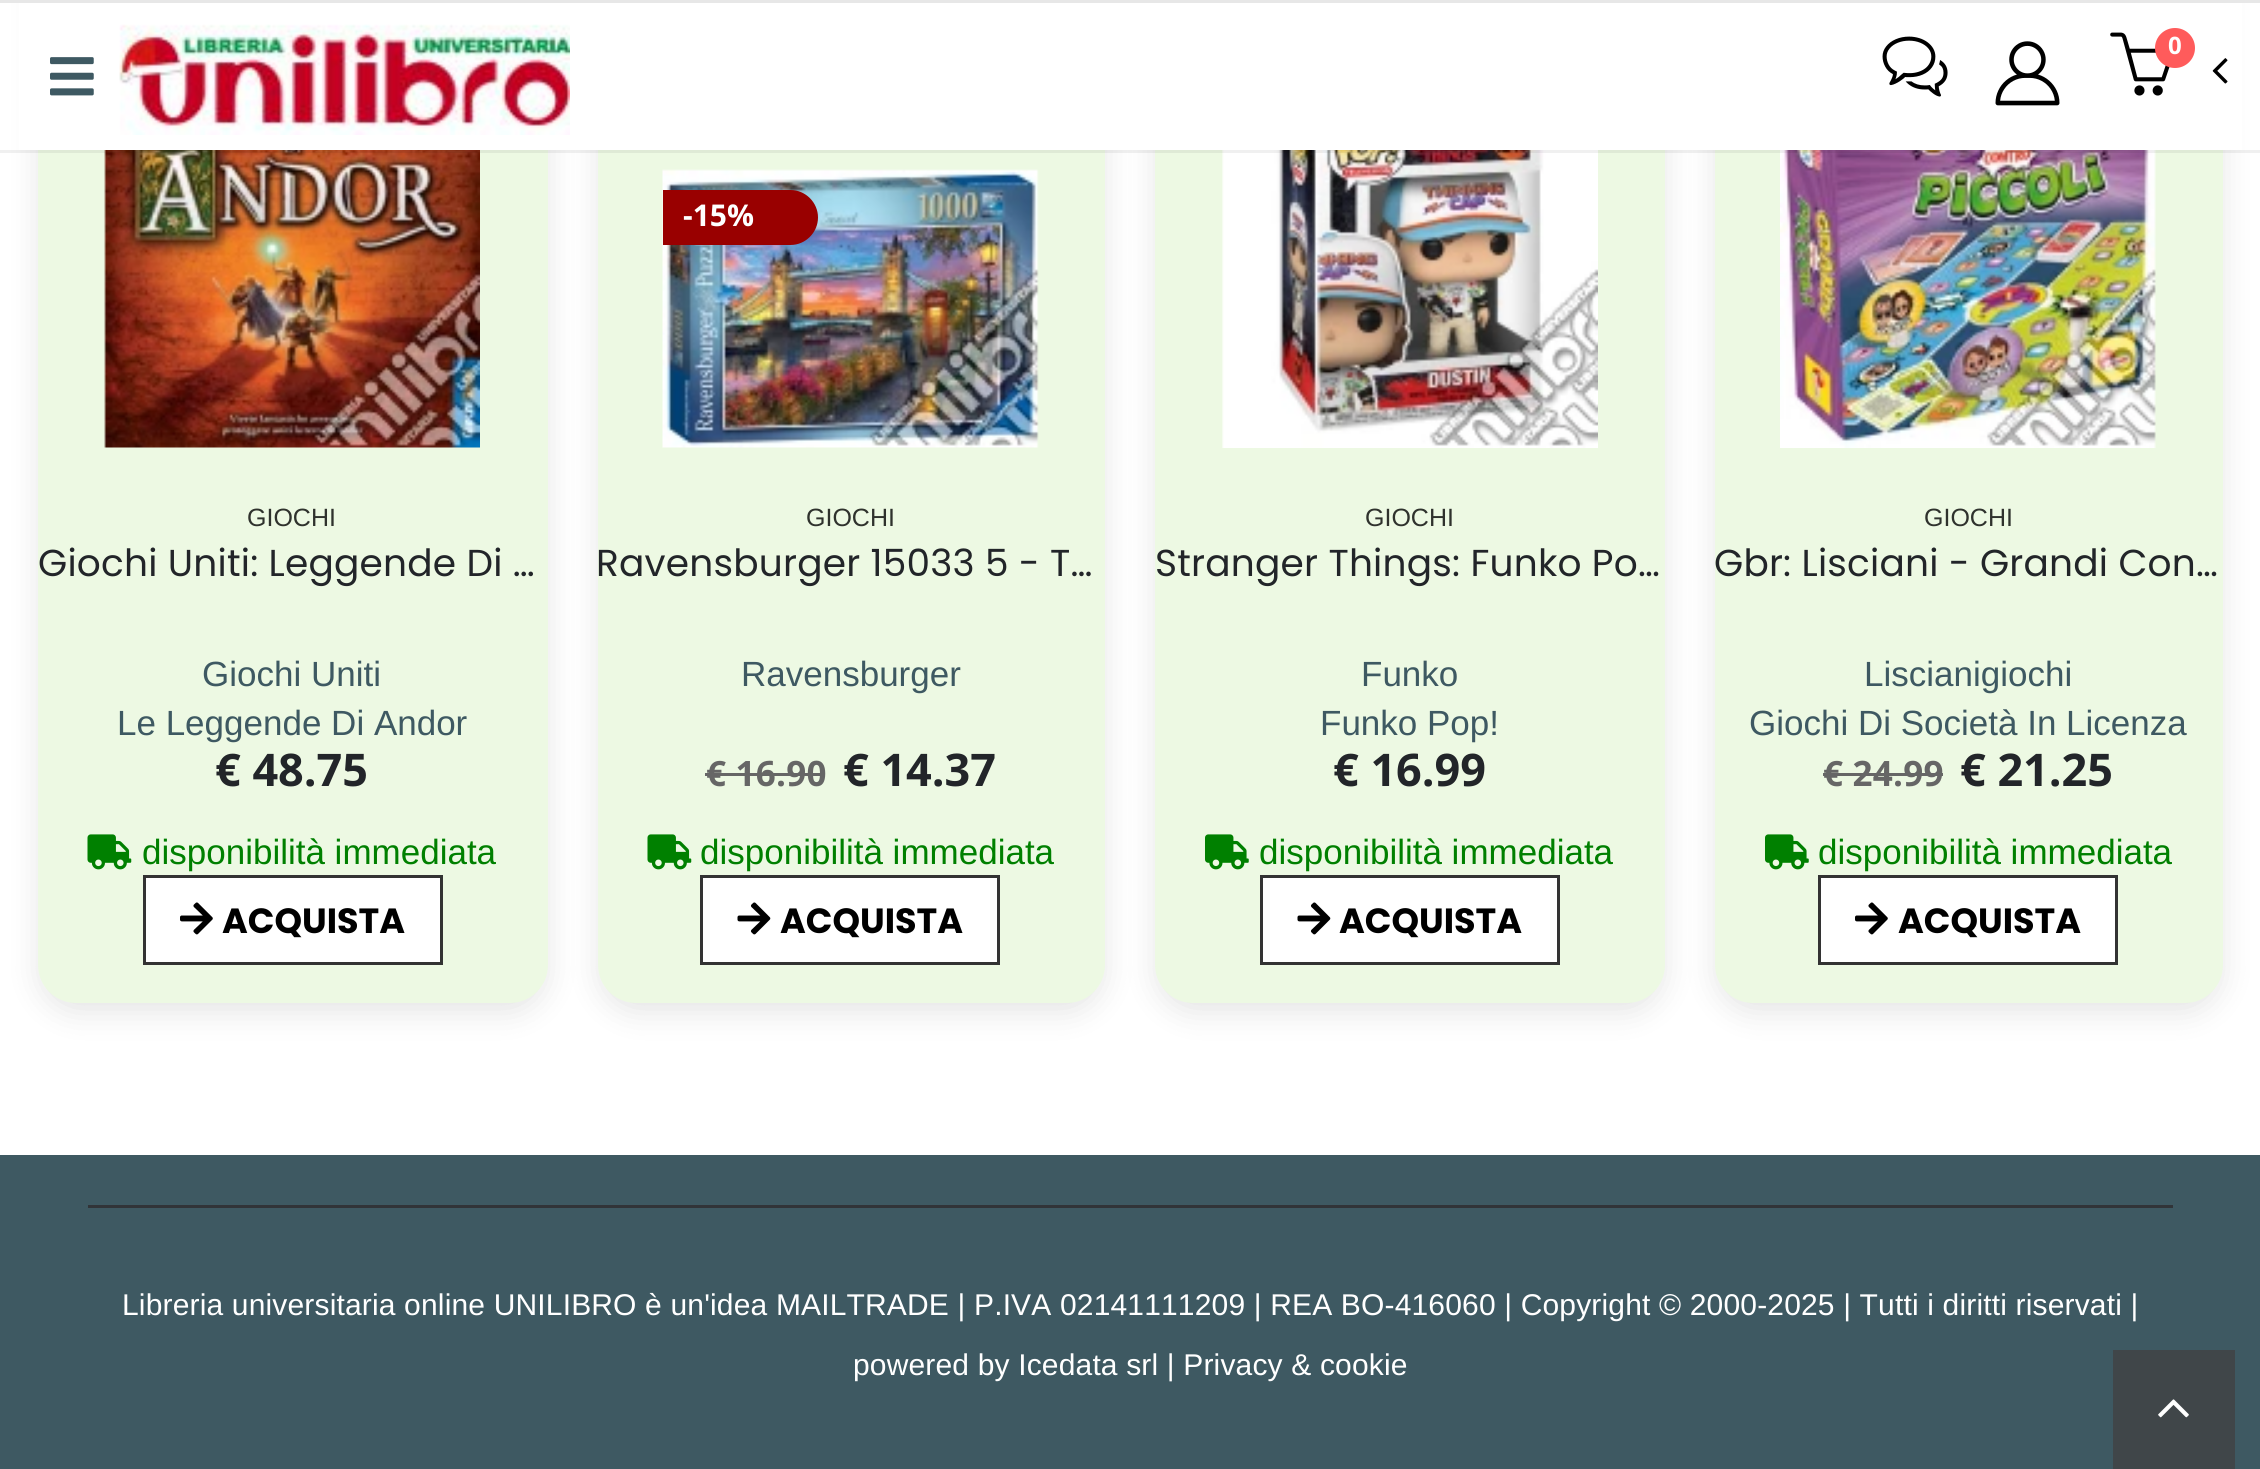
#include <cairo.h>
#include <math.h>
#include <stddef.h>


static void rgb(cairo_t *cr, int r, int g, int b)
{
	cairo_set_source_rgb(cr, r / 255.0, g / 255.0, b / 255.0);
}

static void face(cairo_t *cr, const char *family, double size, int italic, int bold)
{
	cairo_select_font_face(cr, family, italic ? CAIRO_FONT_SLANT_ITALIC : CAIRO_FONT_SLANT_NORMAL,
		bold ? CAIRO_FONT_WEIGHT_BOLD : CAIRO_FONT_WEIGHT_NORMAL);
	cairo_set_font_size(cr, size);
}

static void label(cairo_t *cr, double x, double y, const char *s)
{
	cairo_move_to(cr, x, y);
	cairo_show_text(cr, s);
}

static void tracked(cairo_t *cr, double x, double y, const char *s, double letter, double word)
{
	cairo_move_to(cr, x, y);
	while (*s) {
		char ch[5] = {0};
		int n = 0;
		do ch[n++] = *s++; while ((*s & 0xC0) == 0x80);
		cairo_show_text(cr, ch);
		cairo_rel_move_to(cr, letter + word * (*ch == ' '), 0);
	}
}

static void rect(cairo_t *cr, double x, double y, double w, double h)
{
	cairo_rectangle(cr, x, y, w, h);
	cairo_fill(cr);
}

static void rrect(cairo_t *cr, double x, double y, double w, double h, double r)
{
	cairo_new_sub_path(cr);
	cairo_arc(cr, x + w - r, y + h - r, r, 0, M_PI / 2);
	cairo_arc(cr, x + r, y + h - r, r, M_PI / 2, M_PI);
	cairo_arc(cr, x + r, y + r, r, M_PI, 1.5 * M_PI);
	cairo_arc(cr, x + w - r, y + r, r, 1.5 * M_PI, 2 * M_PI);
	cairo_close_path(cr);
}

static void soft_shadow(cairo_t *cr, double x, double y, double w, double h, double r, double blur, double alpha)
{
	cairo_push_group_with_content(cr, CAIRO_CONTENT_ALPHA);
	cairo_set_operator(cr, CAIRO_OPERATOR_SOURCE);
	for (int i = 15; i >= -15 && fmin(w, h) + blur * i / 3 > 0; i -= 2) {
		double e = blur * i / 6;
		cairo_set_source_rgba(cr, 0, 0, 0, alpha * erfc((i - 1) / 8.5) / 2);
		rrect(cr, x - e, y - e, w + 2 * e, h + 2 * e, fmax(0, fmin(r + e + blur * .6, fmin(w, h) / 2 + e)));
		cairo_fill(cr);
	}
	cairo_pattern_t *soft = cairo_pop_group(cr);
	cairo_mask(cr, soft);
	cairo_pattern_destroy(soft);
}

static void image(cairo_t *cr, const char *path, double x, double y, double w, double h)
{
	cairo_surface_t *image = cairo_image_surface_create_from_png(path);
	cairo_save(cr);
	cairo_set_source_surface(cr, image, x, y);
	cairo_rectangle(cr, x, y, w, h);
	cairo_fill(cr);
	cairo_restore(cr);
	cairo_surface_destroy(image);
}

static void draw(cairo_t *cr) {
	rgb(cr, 255, 255, 255);
	cairo_paint(cr);
	rgb(cr, 0, 0, 0);
	soft_shadow(cr, 38, -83, 510, 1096, 38, 15, 0.1);
	rgb(cr, 237, 249, 227);
	rrect(cr, 38, -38, 510, 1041, 38);
	cairo_fill(cr);
	image(cr, "image6.png", 104, 150, 376, 298);
	rgb(cr, 0, 0, 0);
	soft_shadow(cr, 598, -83, 507, 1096, 38, 15, 0.1);
	rgb(cr, 237, 249, 227);
	rrect(cr, 598, -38, 507, 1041, 38);
	cairo_fill(cr);
	rgb(cr, 0, 0, 0);
	soft_shadow(cr, 1155, -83, 510, 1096, 38, 15, 0.1);
	rgb(cr, 237, 249, 227);
	rrect(cr, 1155, -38, 510, 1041, 38);
	cairo_fill(cr);
	image(cr, "image11.png", 1222, 150, 376, 298);
	rgb(cr, 0, 0, 0);
	soft_shadow(cr, 1715, -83, 508, 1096, 38, 15, 0.1);
	rgb(cr, 237, 249, 227);
	rrect(cr, 1715, -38, 508, 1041, 38);
	cairo_fill(cr);
	image(cr, "image13.png", 1780, 150, 376, 298);
	cairo_set_source_rgba(cr, 0, 0, 0, 0.06);
	rect(cr, 0, 150, 2260, 3);
	rgb(cr, 255, 255, 255);
	rect(cr, 19, 3, 2223, 147);
	rgb(cr, 231, 231, 231);
	rect(cr, 0, 0, 2260, 3);
	image(cr, "image0.png", 50, 57, 44, 39);
	image(cr, "image1.png", 119, 24, 451, 111);
	image(cr, "image2.png", 1882, 36, 66, 61);
	image(cr, "image3.png", 1995, 41, 65, 65);
	image(cr, "image4.png", 2110, 32, 60, 64);
	rgb(cr, 255, 91, 91);
	cairo_arc(cr, 2175, 48, 20, 0, 2 * M_PI);
	cairo_fill(cr);
	face(cr, "Open Sans", 24, 0, 1);
	rgb(cr, 255, 255, 255);
	label(cr, 2168, 54, "0");
	image(cr, "image5.png", 2212, 58, 16, 26);
	face(cr, "Liberation Sans", 25, 0, 0);
	rgb(cr, 47, 50, 45);
	label(cr, 247, 526, "GIOCHI");
	face(cr, "Poppins", 37.5, 0, 0);
	rgb(cr, 34, 37, 41);
	tracked(cr, 38, 576, "Giochi Uniti: Leggende Di …", 0.2, 0);
	face(cr, "Liberation Sans", 35, 0, 0);
	rgb(cr, 62, 89, 98);
	label(cr, 202, 686, "Giochi Uniti");
	label(cr, 117, 735, "Le Leggende Di Andor");
	face(cr, "Open Sans", 45, 0, 1);
	rgb(cr, 34, 37, 41);
	label(cr, 215, 786, "€ 48.75");
	image(cr, "image7.png", 87, 834, 45, 36);
	face(cr, "Liberation Sans", 35, 0, 0);
	rgb(cr, 0, 128, 0);
	label(cr, 142, 864, "disponibilità immediata");
	rgb(cr, 255, 255, 255);
	cairo_rectangle(cr, 144.5, 876.5, 297, 87);
	cairo_fill_preserve(cr);
	rgb(cr, 51, 51, 51);
	cairo_set_line_width(cr, 3);
	cairo_stroke(cr);
	image(cr, "image8.png", 180, 902, 33, 33);
	face(cr, "Poppins", 35, 0, 1);
	rgb(cr, 0, 0, 0);
	label(cr, 222, 933, "ACQUISTA");
	image(cr, "image9.png", 662, 169, 377, 279);
	rgb(cr, 153, 0, 0);
	cairo_new_path(cr);
	cairo_move_to(cr, 663, 190);
	cairo_line_to(cr, 790.5, 190);
	cairo_curve_to(cr, 805.5, 190, 818, 202.5, 818, 217.5);
	cairo_curve_to(cr, 818, 232.5, 805.5, 245, 790.5, 245);
	cairo_line_to(cr, 663, 245);
	cairo_close_path(cr);
	cairo_fill(cr);
	face(cr, "Open Sans", 30, 0, 1);
	rgb(cr, 255, 255, 255);
	label(cr, 683, 226, "-15%");
	face(cr, "Liberation Sans", 25, 0, 0);
	rgb(cr, 47, 50, 45);
	label(cr, 806, 526, "GIOCHI");
	face(cr, "Poppins", 37.5, 0, 0);
	rgb(cr, 34, 37, 41);
	tracked(cr, 596, 576, "Ravensburger 15033 5 - T…", 0.2, 0);
	face(cr, "Liberation Sans", 35, 0, 0);
	rgb(cr, 62, 89, 98);
	label(cr, 741, 686, "Ravensburger");
	face(cr, "Open Sans", 35, 0, 1);
	rgb(cr, 102, 102, 102);
	tracked(cr, 706, 786, "€ 16.90", 0.25, 0);
	rect(cr, 705, 773, 120, 3);
	face(cr, "Open Sans", 45, 0, 1);
	rgb(cr, 34, 37, 41);
	label(cr, 843, 786, "€ 14.37");
	image(cr, "image7.png", 647, 834, 45, 36);
	face(cr, "Liberation Sans", 35, 0, 0);
	rgb(cr, 0, 128, 0);
	label(cr, 700, 864, "disponibilità immediata");
	rgb(cr, 255, 255, 255);
	cairo_rectangle(cr, 701.5, 876.5, 297, 87);
	cairo_fill_preserve(cr);
	rgb(cr, 51, 51, 51);
	cairo_stroke(cr);
	image(cr, "image10.png", 737, 902, 34, 33);
	face(cr, "Poppins", 35, 0, 1);
	rgb(cr, 0, 0, 0);
	label(cr, 780, 933, "ACQUISTA");
	face(cr, "Liberation Sans", 25, 0, 0);
	rgb(cr, 47, 50, 45);
	label(cr, 1365, 526, "GIOCHI");
	face(cr, "Poppins", 37.5, 0, 0);
	rgb(cr, 34, 37, 41);
	tracked(cr, 1155, 576, "Stranger Things: Funko Po…", 0.2, 0);
	face(cr, "Liberation Sans", 35, 0, 0);
	rgb(cr, 62, 89, 98);
	label(cr, 1361, 686, "Funko");
	label(cr, 1320, 735, "Funko Pop!");
	face(cr, "Open Sans", 45, 0, 1);
	rgb(cr, 34, 37, 41);
	label(cr, 1333, 786, "€ 16.99");
	image(cr, "image12.png", 1205, 834, 44, 36);
	face(cr, "Liberation Sans", 35, 0, 0);
	rgb(cr, 0, 128, 0);
	label(cr, 1259, 864, "disponibilità immediata");
	rgb(cr, 255, 255, 255);
	cairo_rectangle(cr, 1261.5, 876.5, 297, 87);
	cairo_fill_preserve(cr);
	rgb(cr, 51, 51, 51);
	cairo_stroke(cr);
	image(cr, "image10.png", 1297, 902, 34, 33);
	face(cr, "Poppins", 35, 0, 1);
	rgb(cr, 0, 0, 0);
	label(cr, 1339, 933, "ACQUISTA");
	face(cr, "Liberation Sans", 25, 0, 0);
	rgb(cr, 47, 50, 45);
	label(cr, 1924, 526, "GIOCHI");
	face(cr, "Poppins", 37.5, 0, 0);
	rgb(cr, 34, 37, 41);
	tracked(cr, 1714, 576, "Gbr: Lisciani - Grandi Con…", 0.2, 0);
	face(cr, "Liberation Sans", 35, 0, 0);
	rgb(cr, 62, 89, 98);
	label(cr, 1864, 686, "Liscianigiochi");
	label(cr, 1749, 735, "Giochi Di Società In Licenza");
	face(cr, "Open Sans", 35, 0, 1);
	rgb(cr, 102, 102, 102);
	tracked(cr, 1823, 786, "€ 24.99", 0.25, 0);
	rect(cr, 1823, 773, 120, 3);
	face(cr, "Open Sans", 45, 0, 1);
	rgb(cr, 34, 37, 41);
	label(cr, 1960, 786, "€ 21.25");
	image(cr, "image12.png", 1765, 834, 44, 36);
	face(cr, "Liberation Sans", 35, 0, 0);
	rgb(cr, 0, 128, 0);
	label(cr, 1818, 864, "disponibilità immediata");
	rgb(cr, 255, 255, 255);
	cairo_rectangle(cr, 1819.5, 876.5, 297, 87);
	cairo_fill_preserve(cr);
	rgb(cr, 51, 51, 51);
	cairo_stroke(cr);
	image(cr, "image8.png", 1855, 902, 33, 33);
	face(cr, "Poppins", 35, 0, 1);
	rgb(cr, 0, 0, 0);
	label(cr, 1898, 933, "ACQUISTA");
	rgb(cr, 62, 89, 98);
	rect(cr, 0, 1155, 2260, 314);
	rgb(cr, 49, 52, 56);
	rect(cr, 88, 1205, 2085, 3);
	face(cr, "Liberation Sans", 30, 0, 0);
	rgb(cr, 255, 255, 255);
	tracked(cr, 122, 1315, "Libreria universitaria online UNILIBRO è un'idea MAILTRADE | P.IVA 02141111209 | REA BO-416060 | Copyright © 2000-2025 | Tutti i diritti riservati |", 0.16, 0);
	tracked(cr, 853, 1375, "powered by Icedata srl | Privacy & cookie", 0.16, 0);
	rgb(cr, 64, 70, 73);
	rect(cr, 2113, 1350, 122, 119);
	image(cr, "image14.png", 2158, 1399, 31, 19);
}

int main(void) {
	cairo_surface_t *surface = cairo_image_surface_create(CAIRO_FORMAT_RGB24, 2260, 1469);
	cairo_t *cr = cairo_create(surface);
	cairo_font_options_t *options = cairo_font_options_create();
	cairo_font_options_set_hint_metrics(options, CAIRO_HINT_METRICS_OFF);
	cairo_font_options_set_hint_style(options, CAIRO_HINT_STYLE_NONE);
	cairo_set_font_options(cr, options);
	cairo_set_miter_limit(cr, 4);
	draw(cr);
	cairo_surface_write_to_png(surface, "render.png");
	cairo_font_options_destroy(options);
	cairo_destroy(cr);
	cairo_surface_destroy(surface);
	return 0;
}
